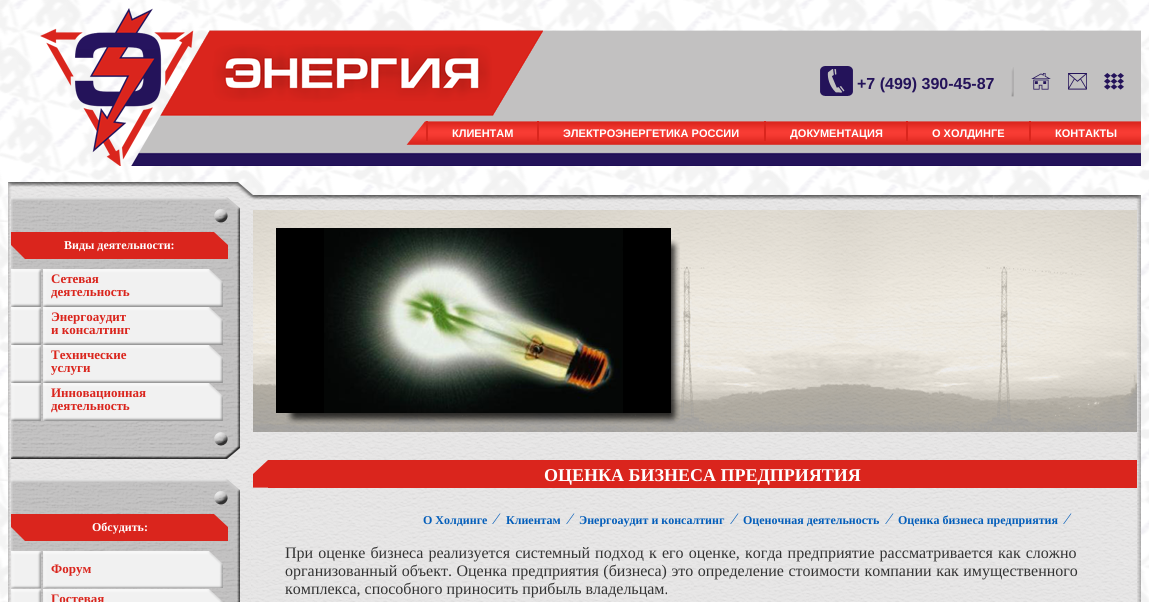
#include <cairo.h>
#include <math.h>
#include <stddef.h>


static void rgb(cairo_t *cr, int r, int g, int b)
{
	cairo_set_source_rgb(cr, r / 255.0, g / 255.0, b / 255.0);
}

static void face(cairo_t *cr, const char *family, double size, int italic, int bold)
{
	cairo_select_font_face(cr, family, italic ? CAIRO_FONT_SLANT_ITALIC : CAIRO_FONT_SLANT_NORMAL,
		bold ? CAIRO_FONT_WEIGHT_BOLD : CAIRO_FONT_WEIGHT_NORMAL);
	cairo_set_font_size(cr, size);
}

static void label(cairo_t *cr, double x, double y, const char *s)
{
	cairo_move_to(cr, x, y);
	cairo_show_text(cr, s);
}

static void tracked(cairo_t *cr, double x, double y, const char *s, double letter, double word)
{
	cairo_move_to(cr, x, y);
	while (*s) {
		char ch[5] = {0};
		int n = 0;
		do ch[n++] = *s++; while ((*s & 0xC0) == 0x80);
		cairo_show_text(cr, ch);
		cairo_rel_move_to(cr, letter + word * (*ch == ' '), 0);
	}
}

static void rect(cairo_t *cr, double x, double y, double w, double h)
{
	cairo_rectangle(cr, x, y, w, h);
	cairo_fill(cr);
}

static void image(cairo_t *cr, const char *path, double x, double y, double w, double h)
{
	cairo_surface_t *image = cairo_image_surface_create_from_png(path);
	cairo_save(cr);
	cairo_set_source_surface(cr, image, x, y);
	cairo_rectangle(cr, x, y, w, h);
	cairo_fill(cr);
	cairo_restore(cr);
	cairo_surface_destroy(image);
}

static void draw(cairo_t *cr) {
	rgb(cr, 255, 255, 255);
	cairo_paint(cr);
	image(cr, "image0.png", 0, 0, 1149, 602);
	image(cr, "image2.png", 40, 8, 169, 158);
	image(cr, "image3.png", 209, 30, 932, 136);
	image(cr, "image1.png", 160, 30, 383, 86);
	image(cr, "image4.png", 820, 66, 33, 30);
	face(cr, "Liberation Sans", 16, 0, 1);
	rgb(cr, 36, 19, 90);
	label(cr, 857, 89, "+7 (499) 390-45-87");
	image(cr, "image5.png", 1011, 67, 3, 30);
	image(cr, "image6.png", 1031, 73, 20, 17);
	image(cr, "image7.png", 1068, 73, 19, 17);
	image(cr, "image8.png", 1104, 73, 20, 17);
	image(cr, "image9.png", 406, 121, 20, 24);
	image(cr, "image10.png", 426, 121, 715, 24);
	rgb(cr, 218, 37, 29);
	rect(cr, 426, 121, 2, 20);
	face(cr, "Liberation Sans", 11, 0, 1);
	rgb(cr, 255, 255, 255);
	label(cr, 452, 137, "КЛИЕНТАМ");
	rgb(cr, 218, 37, 29);
	rect(cr, 537, 121, 2, 20);
	rgb(cr, 255, 255, 255);
	label(cr, 563, 137, "ЭЛЕКТРОЭНЕРГЕТИКА РОССИИ");
	rgb(cr, 218, 37, 29);
	rect(cr, 764, 121, 2, 20);
	rgb(cr, 255, 255, 255);
	label(cr, 790, 137, "ДОКУМЕНТАЦИЯ");
	rgb(cr, 218, 37, 29);
	rect(cr, 906, 121, 2, 20);
	rgb(cr, 255, 255, 255);
	label(cr, 932, 137, "О ХОЛДИНГЕ");
	rgb(cr, 218, 37, 29);
	rect(cr, 1029, 121, 2, 20);
	rgb(cr, 255, 255, 255);
	label(cr, 1055, 137, "КОНТАКТЫ");
	image(cr, "image11.png", 8, 182, 14, 30);
	image(cr, "image12.png", 22, 182, 231, 30);
	image(cr, "image13.png", 253, 195, 871, 15);
	image(cr, "image14.png", 1124, 195, 17, 17);
	image(cr, "image15.png", 8, 212, 14, 390);
	image(cr, "image16.png", 22, 212, 229, 390);
	image(cr, "image17.png", 11, 197, 229, 35);
	image(cr, "image18.png", 11, 232, 229, 189);
	image(cr, "image19.png", 11, 232, 217, 27);
	face(cr, "Liberation Serif", 12, 0, 1);
	label(cr, 64, 249, "Виды деятельности:");
	image(cr, "image20.png", 11, 269, 212, 38);
	face(cr, "Liberation Serif", 13, 0, 1);
	rgb(cr, 218, 37, 29);
	label(cr, 51, 283, "Сетевая");
	label(cr, 51, 296, "деятельность");
	image(cr, "image21.png", 11, 307, 212, 38);
	label(cr, 51, 321, "Энергоаудит");
	label(cr, 51, 334, "и консалтинг");
	image(cr, "image22.png", 11, 345, 212, 38);
	label(cr, 51, 359, "Технические");
	label(cr, 51, 372, "услуги");
	image(cr, "image23.png", 11, 383, 212, 38);
	label(cr, 51, 397, "Инновационная");
	label(cr, 51, 410, "деятельность");
	image(cr, "image24.png", 11, 421, 229, 38);
	image(cr, "image25.png", 11, 479, 229, 35);
	image(cr, "image26.png", 11, 514, 229, 88);
	image(cr, "image19.png", 11, 514, 217, 27);
	face(cr, "Liberation Serif", 12, 0, 1);
	rgb(cr, 255, 255, 255);
	label(cr, 92, 531, "Обсудить:");
	image(cr, "image27.png", 11, 551, 212, 37);
	face(cr, "Liberation Serif", 13, 0, 1);
	rgb(cr, 218, 37, 29);
	label(cr, 51, 573, "Форум");
	image(cr, "image28.png", 11, 589, 212, 13);
	label(cr, 51, 603, "Гостевая");
	image(cr, "image29.png", 251, 212, 886, 390);
	image(cr, "image30.png", 253, 210, 884, 222);
	image(cr, "image32.png", 286, 239, 394, 185);
	image(cr, "image31.png", 276, 228, 395, 185);
	image(cr, "image33.png", 253, 460, 15, 28);
	rect(cr, 268, 460, 869, 28);
	face(cr, "Liberation Serif", 18, 0, 1);
	rgb(cr, 255, 255, 255);
	label(cr, 544, 481, "ОЦЕНКА БИЗНЕСА ПРЕДПРИЯТИЯ");
	face(cr, "Liberation Serif", 12, 0, 1);
	rgb(cr, 4, 94, 186);
	label(cr, 423, 524, "О Холдинге");
	face(cr, "Liberation Serif", 16, 0, 0);
	label(cr, 495, 524, "⁄");
	face(cr, "Liberation Serif", 12, 0, 1);
	label(cr, 506, 524, "Клиентам");
	face(cr, "Liberation Serif", 16, 0, 0);
	label(cr, 569, 524, "⁄");
	face(cr, "Liberation Serif", 12, 0, 1);
	label(cr, 579, 524, "Энергоаудит и консалтинг");
	face(cr, "Liberation Serif", 16, 0, 0);
	label(cr, 733, 524, "⁄");
	face(cr, "Liberation Serif", 12, 0, 1);
	label(cr, 743, 524, "Оценочная деятельность");
	face(cr, "Liberation Serif", 16, 0, 0);
	label(cr, 888, 524, "⁄");
	face(cr, "Liberation Serif", 12, 0, 1);
	label(cr, 898, 524, "Оценка бизнеса предприятия");
	face(cr, "Liberation Serif", 16, 0, 0);
	label(cr, 1066, 524, "⁄");
	rgb(cr, 51, 51, 51);
	tracked(cr, 285, 558, "При оценке бизнеса реализуется системный подход к его оценке, когда предприятие рассматривается как сложно", 0, 1.1);
	tracked(cr, 285, 576, "организованный объект. Оценка предприятия (бизнеса) это определение стоимости компании как имущественного", 0, 0.5);
	label(cr, 285, 594, "комплекса, способного приносить прибыль владельцам.");
	image(cr, "image34.png", 1137, 212, 4, 390);
}

int main(void) {
	cairo_surface_t *surface = cairo_image_surface_create(CAIRO_FORMAT_RGB24, 1149, 602);
	cairo_t *cr = cairo_create(surface);
	cairo_font_options_t *options = cairo_font_options_create();
	cairo_font_options_set_hint_metrics(options, CAIRO_HINT_METRICS_OFF);
	cairo_font_options_set_hint_style(options, CAIRO_HINT_STYLE_NONE);
	cairo_set_font_options(cr, options);
	cairo_set_miter_limit(cr, 4);
	draw(cr);
	cairo_surface_write_to_png(surface, "render.png");
	cairo_font_options_destroy(options);
	cairo_destroy(cr);
	cairo_surface_destroy(surface);
	return 0;
}
